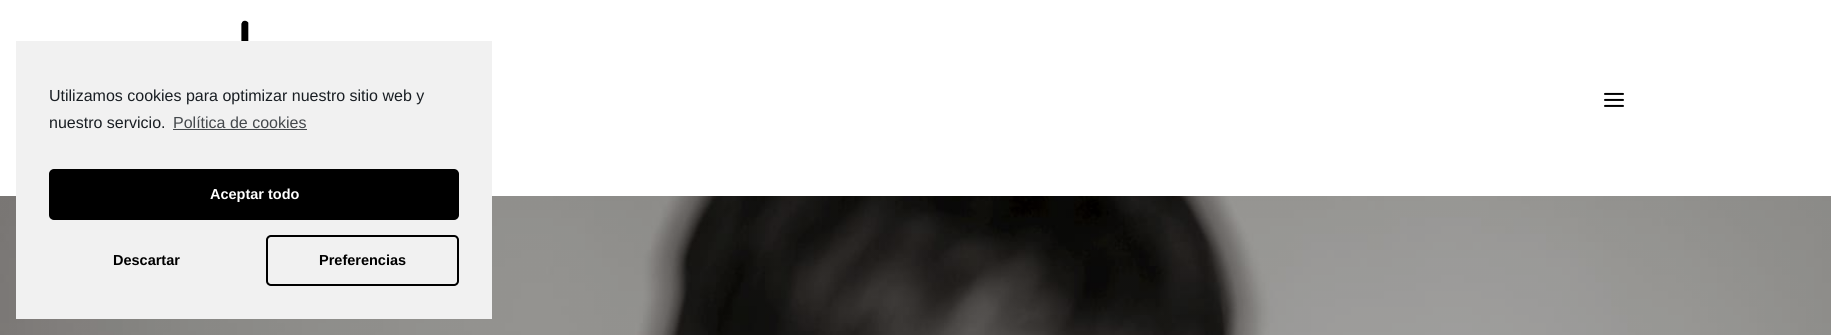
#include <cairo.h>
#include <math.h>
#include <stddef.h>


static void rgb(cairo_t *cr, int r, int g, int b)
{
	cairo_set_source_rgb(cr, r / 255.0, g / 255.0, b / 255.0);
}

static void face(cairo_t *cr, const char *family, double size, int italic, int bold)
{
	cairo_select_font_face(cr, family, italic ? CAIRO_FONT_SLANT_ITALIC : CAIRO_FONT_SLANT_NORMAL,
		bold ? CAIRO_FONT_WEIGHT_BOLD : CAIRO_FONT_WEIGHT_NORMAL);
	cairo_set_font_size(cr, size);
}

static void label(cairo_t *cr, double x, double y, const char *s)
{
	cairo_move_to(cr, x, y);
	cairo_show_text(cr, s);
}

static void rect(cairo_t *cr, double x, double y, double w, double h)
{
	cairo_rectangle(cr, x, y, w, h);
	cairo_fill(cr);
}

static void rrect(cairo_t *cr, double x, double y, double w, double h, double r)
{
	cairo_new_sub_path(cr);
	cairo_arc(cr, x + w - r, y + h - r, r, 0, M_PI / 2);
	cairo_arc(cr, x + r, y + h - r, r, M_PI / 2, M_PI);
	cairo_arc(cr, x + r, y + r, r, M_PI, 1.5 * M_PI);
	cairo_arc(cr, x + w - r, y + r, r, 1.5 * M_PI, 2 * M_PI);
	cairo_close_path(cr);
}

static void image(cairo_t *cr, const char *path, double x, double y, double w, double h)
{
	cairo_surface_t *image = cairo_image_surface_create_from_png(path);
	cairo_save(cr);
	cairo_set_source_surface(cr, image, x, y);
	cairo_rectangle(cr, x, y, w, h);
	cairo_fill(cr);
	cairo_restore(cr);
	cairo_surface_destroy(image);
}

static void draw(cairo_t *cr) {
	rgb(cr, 255, 255, 255);
	cairo_paint(cr);
	image(cr, "image0.png", 241, 20, 8, 21);
	image(cr, "image1.png", 1604, 92, 20, 15);
	image(cr, "image2.png", 0, 196, 1831, 139);
	rgb(cr, 241, 241, 241);
	rect(cr, 16, 41, 476, 278);
	face(cr, "Liberation Sans", 16, 0, 0);
	rgb(cr, 25, 30, 35);
	label(cr, 49, 101, "Utilizamos cookies para optimizar nuestro sitio web y");
	label(cr, 49, 128, "nuestro servicio.");
	rgb(cr, 68, 72, 76);
	label(cr, 173, 128, "Política de cookies");
	rect(cr, 173, 129, 134, 1);
	rgb(cr, 0, 0, 0);
	rrect(cr, 50, 170, 408, 49, 4);
	cairo_fill_preserve(cr);
	cairo_stroke(cr);
	face(cr, "Liberation Sans", 14.5, 0, 1);
	rgb(cr, 255, 255, 255);
	label(cr, 210, 199, "Aceptar todo");
	rgb(cr, 0, 0, 0);
	label(cr, 113, 265, "Descartar");
	rrect(cr, 267, 236, 191, 49, 4);
	cairo_stroke(cr);
	label(cr, 319, 265, "Preferencias");
}

int main(void) {
	cairo_surface_t *surface = cairo_image_surface_create(CAIRO_FORMAT_RGB24, 1831, 335);
	cairo_t *cr = cairo_create(surface);
	cairo_font_options_t *options = cairo_font_options_create();
	cairo_font_options_set_hint_metrics(options, CAIRO_HINT_METRICS_OFF);
	cairo_font_options_set_hint_style(options, CAIRO_HINT_STYLE_NONE);
	cairo_set_font_options(cr, options);
	cairo_set_miter_limit(cr, 4);
	draw(cr);
	cairo_surface_write_to_png(surface, "render.png");
	cairo_font_options_destroy(options);
	cairo_destroy(cr);
	cairo_surface_destroy(surface);
	return 0;
}
